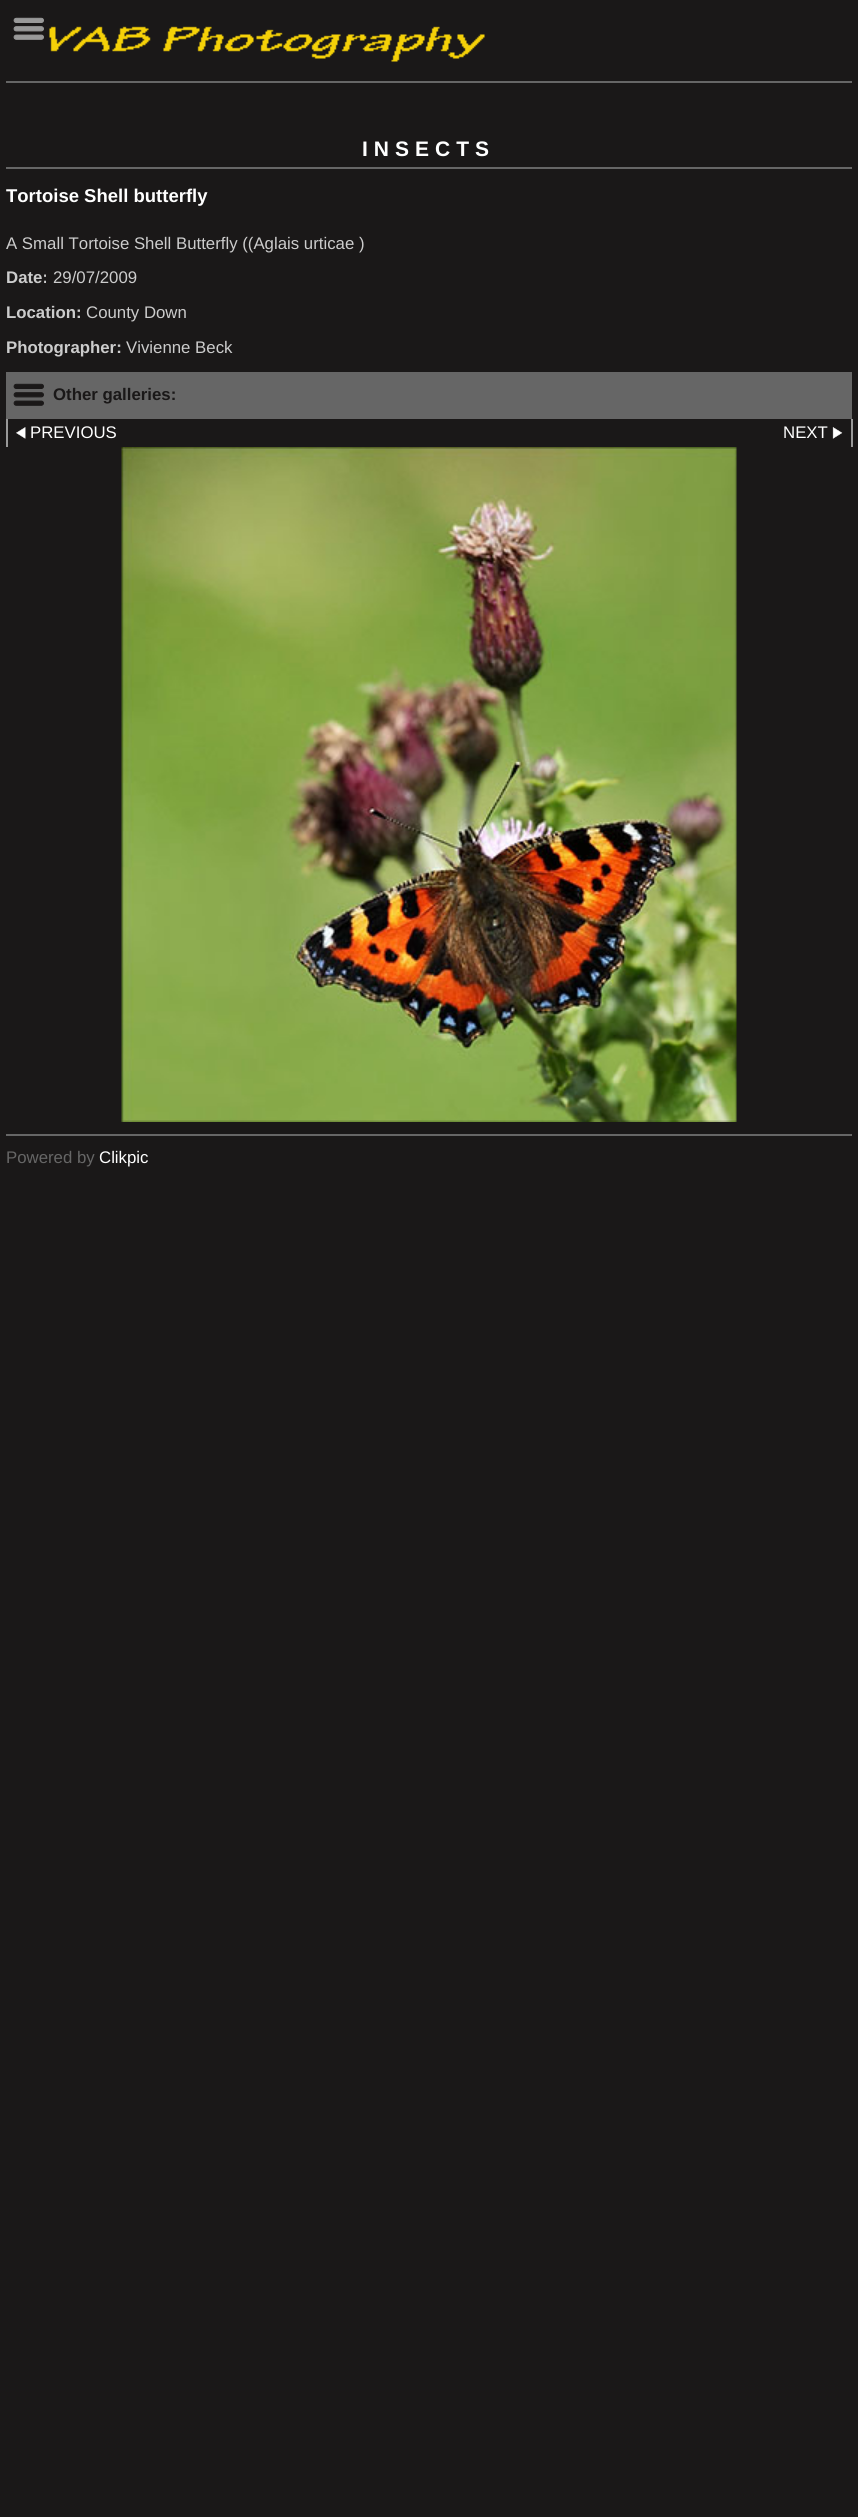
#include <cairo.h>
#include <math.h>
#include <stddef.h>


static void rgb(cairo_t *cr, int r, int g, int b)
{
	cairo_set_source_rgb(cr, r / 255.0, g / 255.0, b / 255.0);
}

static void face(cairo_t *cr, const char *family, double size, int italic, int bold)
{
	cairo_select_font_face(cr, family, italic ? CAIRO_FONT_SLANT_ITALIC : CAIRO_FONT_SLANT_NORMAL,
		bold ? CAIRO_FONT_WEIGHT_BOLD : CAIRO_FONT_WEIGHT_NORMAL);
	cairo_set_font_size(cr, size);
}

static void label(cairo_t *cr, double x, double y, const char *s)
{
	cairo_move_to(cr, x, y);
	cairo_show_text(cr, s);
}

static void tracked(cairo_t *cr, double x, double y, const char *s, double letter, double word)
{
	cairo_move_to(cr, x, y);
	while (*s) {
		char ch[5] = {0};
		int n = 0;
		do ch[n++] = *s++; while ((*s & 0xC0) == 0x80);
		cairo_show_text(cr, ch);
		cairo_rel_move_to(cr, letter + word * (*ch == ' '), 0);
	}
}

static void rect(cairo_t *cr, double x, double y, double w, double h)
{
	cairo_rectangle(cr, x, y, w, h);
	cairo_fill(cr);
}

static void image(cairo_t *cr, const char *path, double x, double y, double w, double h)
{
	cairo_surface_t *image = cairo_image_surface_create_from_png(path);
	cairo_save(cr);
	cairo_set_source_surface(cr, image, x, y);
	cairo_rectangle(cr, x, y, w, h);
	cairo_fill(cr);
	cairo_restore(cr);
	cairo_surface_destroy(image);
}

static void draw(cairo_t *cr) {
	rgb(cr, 26, 24, 24);
	cairo_paint(cr);
	rgb(cr, 102, 102, 102);
	rect(cr, 6, 81, 846, 2);
	image(cr, "image0.png", 13, 17, 31, 23);
	image(cr, "image1.png", 49, 26, 436, 36);
	rect(cr, 6, 167, 846, 2);
	face(cr, "Liberation Sans", 21, 0, 1);
	rgb(cr, 255, 255, 255);
	tracked(cr, 362, 156, "INSECTS", 6, 0);
	face(cr, "Liberation Sans", 18.5, 0, 1);
	label(cr, 6, 202, "Tortoise Shell butterfly");
	face(cr, "Liberation Sans", 16.8, 0, 0);
	rgb(cr, 204, 204, 204);
	label(cr, 6, 249, "A Small Tortoise Shell Butterfly ((Aglais urticae )");
	face(cr, "Liberation Sans", 16.8, 0, 1);
	label(cr, 6, 283, "Date:");
	face(cr, "Liberation Sans", 16.8, 0, 0);
	label(cr, 53, 283, "29/07/2009");
	face(cr, "Liberation Sans", 16.8, 0, 1);
	label(cr, 6, 318, "Location:");
	face(cr, "Liberation Sans", 16.8, 0, 0);
	label(cr, 86, 318, "County Down");
	face(cr, "Liberation Sans", 16.8, 0, 1);
	label(cr, 6, 353, "Photographer:");
	face(cr, "Liberation Sans", 16.8, 0, 0);
	label(cr, 126, 353, "Vivienne Beck");
	rgb(cr, 102, 102, 102);
	rect(cr, 6, 372, 846, 47);
	image(cr, "image2.png", 13, 383, 31, 23);
	face(cr, "Liberation Sans", 16.8, 0, 1);
	rgb(cr, 26, 24, 24);
	label(cr, 53, 400, "Other galleries:");
	rgb(cr, 153, 153, 153);
	rect(cr, 6, 419, 2, 28);
	image(cr, "image3.png", 16, 427, 10, 12);
	face(cr, "Liberation Sans", 16.8, 0, 0);
	rgb(cr, 255, 255, 255);
	label(cr, 30, 438, "PREVIOUS");
	rgb(cr, 153, 153, 153);
	rect(cr, 851, 419, 2, 28);
	rgb(cr, 255, 255, 255);
	label(cr, 783, 438, "NEXT");
	image(cr, "image4.png", 832, 427, 11, 12);
	image(cr, "image5.png", 121, 447, 616, 675);
	rgb(cr, 102, 102, 102);
	rect(cr, 6, 1134, 846, 2);
	label(cr, 6, 1163, "Powered by");
	rgb(cr, 255, 255, 255);
	label(cr, 99, 1163, "Clikpic");
}

int main(void) {
	cairo_surface_t *surface = cairo_image_surface_create(CAIRO_FORMAT_RGB24, 858, 2517);
	cairo_t *cr = cairo_create(surface);
	cairo_font_options_t *options = cairo_font_options_create();
	cairo_font_options_set_hint_metrics(options, CAIRO_HINT_METRICS_OFF);
	cairo_font_options_set_hint_style(options, CAIRO_HINT_STYLE_NONE);
	cairo_set_font_options(cr, options);
	cairo_set_miter_limit(cr, 4);
	draw(cr);
	cairo_surface_write_to_png(surface, "render.png");
	cairo_font_options_destroy(options);
	cairo_destroy(cr);
	cairo_surface_destroy(surface);
	return 0;
}
